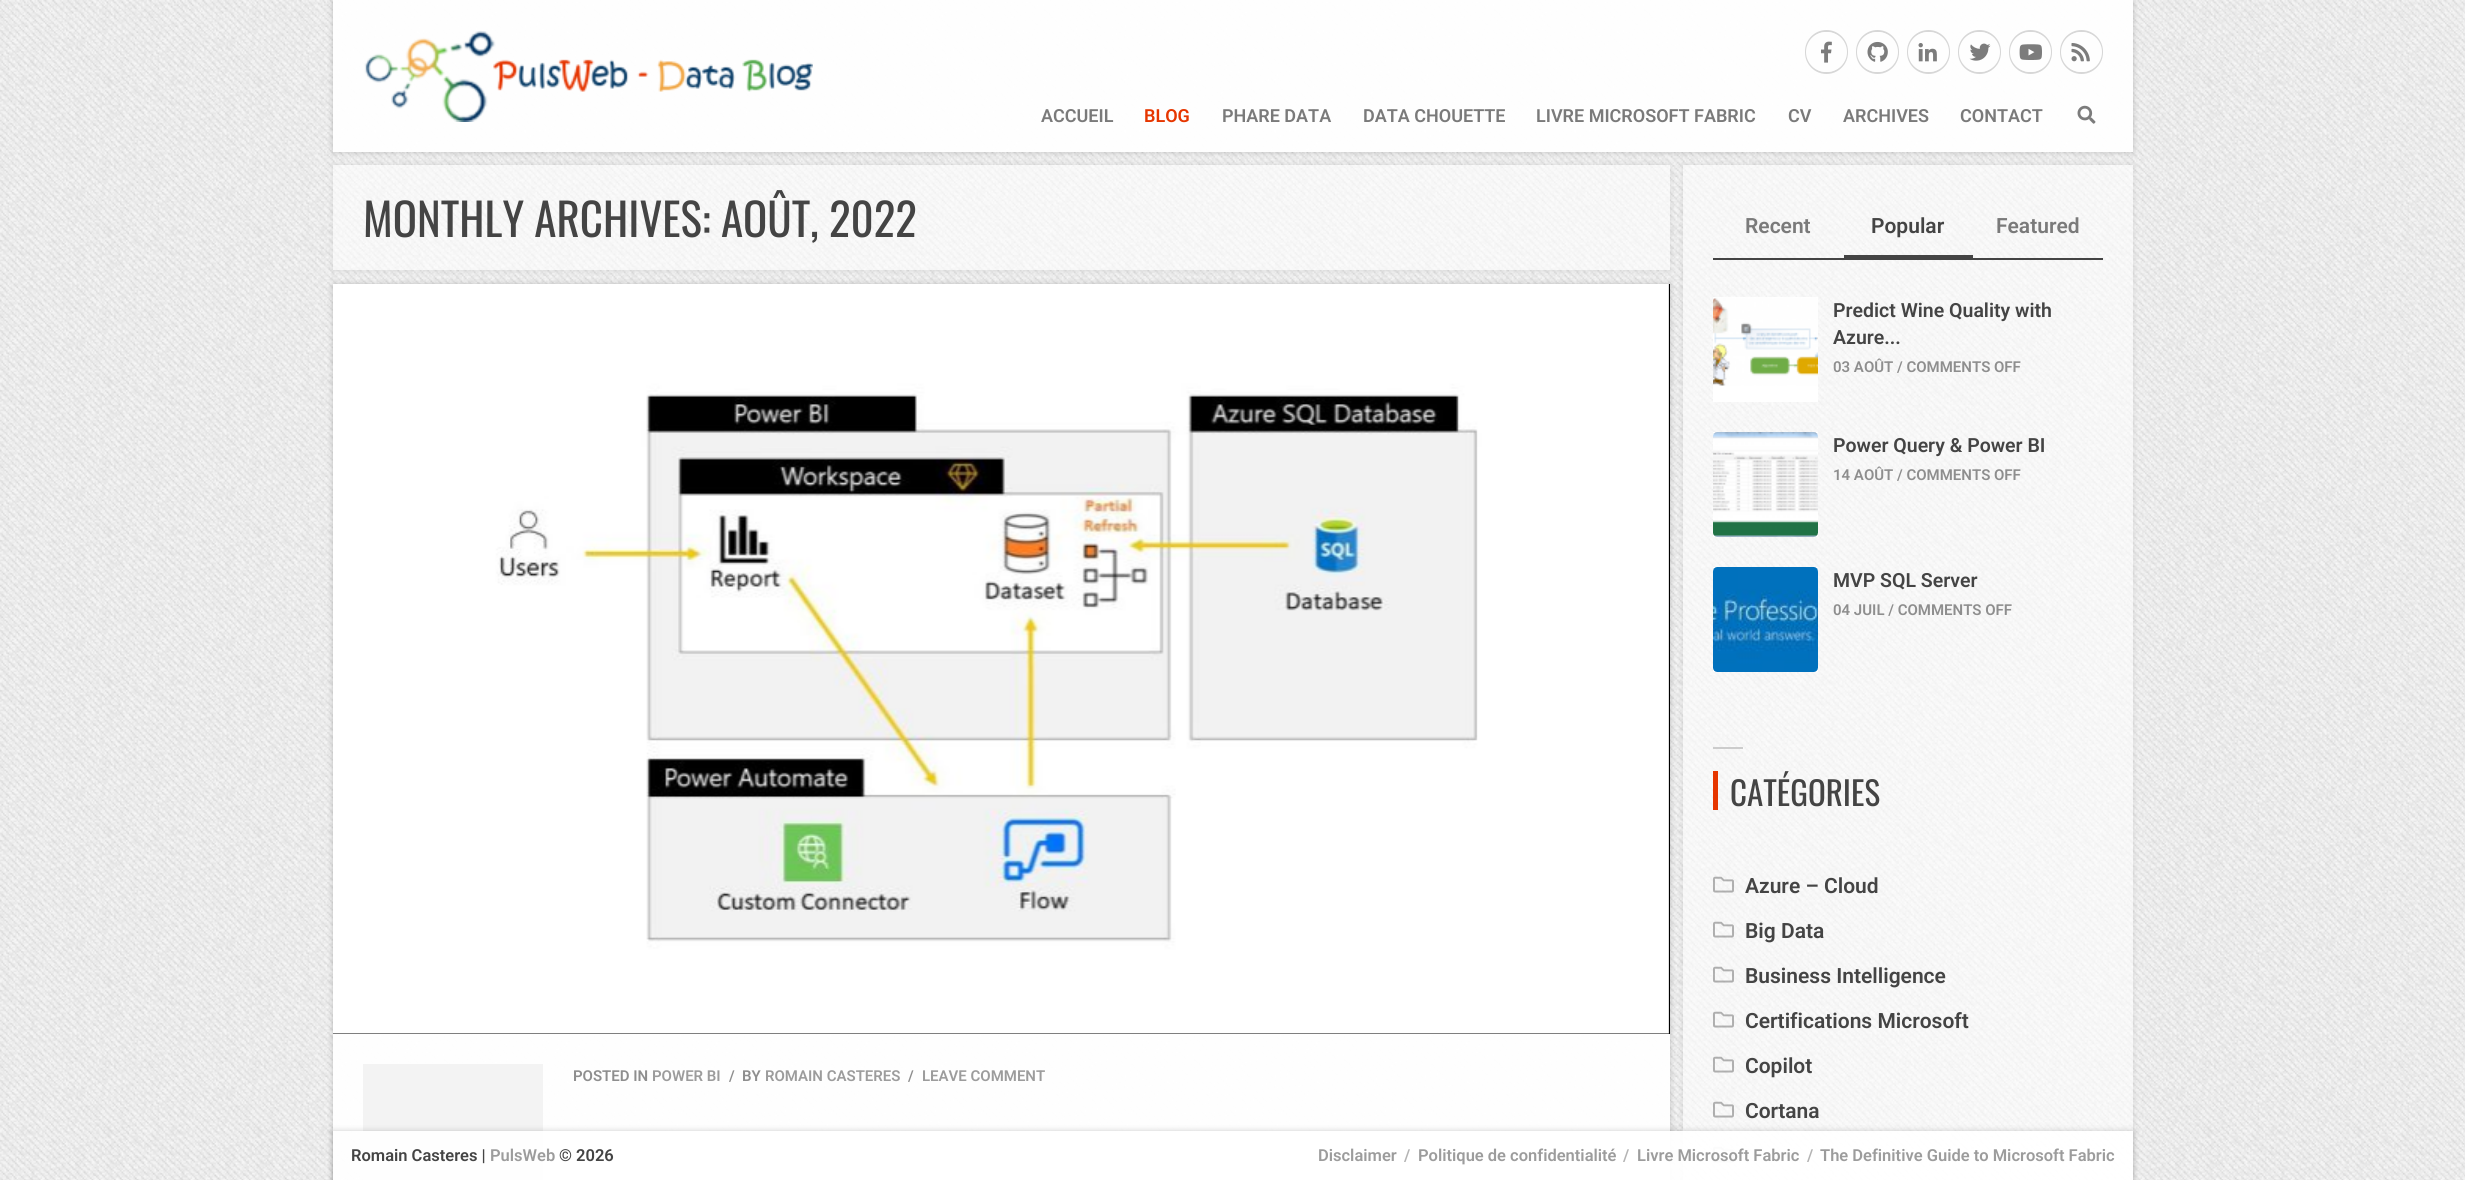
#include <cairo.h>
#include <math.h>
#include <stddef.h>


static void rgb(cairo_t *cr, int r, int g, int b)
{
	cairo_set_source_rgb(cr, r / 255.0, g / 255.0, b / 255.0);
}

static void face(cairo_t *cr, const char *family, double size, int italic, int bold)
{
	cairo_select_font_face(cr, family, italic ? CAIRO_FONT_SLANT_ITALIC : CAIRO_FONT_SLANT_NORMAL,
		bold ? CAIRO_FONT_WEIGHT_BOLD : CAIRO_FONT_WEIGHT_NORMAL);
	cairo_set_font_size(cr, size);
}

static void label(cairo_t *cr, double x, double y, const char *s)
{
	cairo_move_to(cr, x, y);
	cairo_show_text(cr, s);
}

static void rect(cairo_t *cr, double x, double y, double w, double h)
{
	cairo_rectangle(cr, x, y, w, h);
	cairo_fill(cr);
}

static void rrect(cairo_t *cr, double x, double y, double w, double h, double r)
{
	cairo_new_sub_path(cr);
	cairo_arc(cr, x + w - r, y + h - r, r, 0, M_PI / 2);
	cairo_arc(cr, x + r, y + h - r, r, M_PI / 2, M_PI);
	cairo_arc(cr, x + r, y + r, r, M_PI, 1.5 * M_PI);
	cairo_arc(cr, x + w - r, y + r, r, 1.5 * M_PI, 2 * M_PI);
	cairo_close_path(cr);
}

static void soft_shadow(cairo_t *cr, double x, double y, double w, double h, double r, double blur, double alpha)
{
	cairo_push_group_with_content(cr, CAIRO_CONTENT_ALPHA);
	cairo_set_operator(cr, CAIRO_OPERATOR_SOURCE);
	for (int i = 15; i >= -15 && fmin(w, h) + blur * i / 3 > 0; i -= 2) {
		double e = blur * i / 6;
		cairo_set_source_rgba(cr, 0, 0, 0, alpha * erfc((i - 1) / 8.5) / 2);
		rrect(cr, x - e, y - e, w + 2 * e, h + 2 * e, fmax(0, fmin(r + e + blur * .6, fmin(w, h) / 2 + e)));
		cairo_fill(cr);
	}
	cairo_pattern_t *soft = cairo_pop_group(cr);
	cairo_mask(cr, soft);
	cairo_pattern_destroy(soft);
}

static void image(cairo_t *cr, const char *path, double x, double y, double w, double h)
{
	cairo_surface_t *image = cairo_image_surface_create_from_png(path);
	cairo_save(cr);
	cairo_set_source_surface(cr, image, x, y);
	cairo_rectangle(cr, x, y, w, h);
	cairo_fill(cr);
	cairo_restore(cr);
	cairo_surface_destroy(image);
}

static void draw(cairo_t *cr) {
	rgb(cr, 255, 255, 255);
	cairo_paint(cr);
	image(cr, "image0.png", 0, 0, 2465, 1180);
	cairo_save(cr);
	cairo_set_fill_rule(cr, CAIRO_FILL_RULE_EVEN_ODD);
	cairo_new_path(cr);
	cairo_move_to(cr, 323, 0);
	cairo_line_to(cr, 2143, 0);
	cairo_line_to(cr, 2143, 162);
	cairo_line_to(cr, 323, 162);
	cairo_close_path(cr);
	cairo_move_to(cr, 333, 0);
	cairo_line_to(cr, 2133, 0);
	cairo_line_to(cr, 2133, 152);
	cairo_line_to(cr, 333, 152);
	cairo_close_path(cr);
	cairo_clip(cr);
	rgb(cr, 0, 0, 0);
	soft_shadow(cr, 333, 0, 1800, 152, 0, 3, 0.2);
	cairo_restore(cr);
	cairo_set_source_rgba(cr, 1, 1, 1, 0.95);
	rect(cr, 333, 0, 1800, 152);
	image(cr, "image1.png", 364, 30, 449, 92);
	rrect(cr, 1806, 31, 41, 42, 20.5);
	rgb(cr, 215, 215, 215);
	cairo_stroke(cr);
	rgb(cr, 254, 254, 254);
	rrect(cr, 1806, 32, 41, 40, 20);
	cairo_fill(cr);
	image(cr, "image2.png", 1821, 41, 11, 22);
	rrect(cr, 1857, 31, 41, 42, 20.5);
	rgb(cr, 215, 215, 215);
	cairo_stroke(cr);
	rgb(cr, 254, 254, 254);
	rrect(cr, 1857, 32, 41, 40, 20);
	cairo_fill(cr);
	image(cr, "image3.png", 1867, 41, 21, 21);
	rrect(cr, 1908, 31, 41, 42, 20.5);
	rgb(cr, 215, 215, 215);
	cairo_stroke(cr);
	rgb(cr, 254, 254, 254);
	rrect(cr, 1908, 32, 41, 40, 20);
	cairo_fill(cr);
	image(cr, "image4.png", 1918, 43, 19, 19);
	rrect(cr, 1959, 31, 41, 42, 20.5);
	rgb(cr, 215, 215, 215);
	cairo_stroke(cr);
	rgb(cr, 254, 254, 254);
	rrect(cr, 1959, 32, 41, 40, 20);
	cairo_fill(cr);
	image(cr, "image5.png", 1969, 43, 22, 18);
	rrect(cr, 2010, 31, 41, 42, 20.5);
	rgb(cr, 215, 215, 215);
	cairo_stroke(cr);
	rgb(cr, 254, 254, 254);
	rrect(cr, 2010, 32, 41, 40, 20);
	cairo_fill(cr);
	image(cr, "image6.png", 2019, 44, 23, 16);
	rrect(cr, 2061, 31, 41, 42, 20.5);
	rgb(cr, 215, 215, 215);
	cairo_stroke(cr);
	rgb(cr, 254, 254, 254);
	rrect(cr, 2061, 32, 41, 40, 20);
	cairo_fill(cr);
	image(cr, "image7.png", 2071, 43, 19, 19);
	face(cr, "Roboto SemiBold", 18, 0, 0);
	rgb(cr, 122, 122, 122);
	label(cr, 1041, 122, "ACCUEIL");
	rgb(cr, 230, 54, 0);
	label(cr, 1144, 122, "BLOG");
	rgb(cr, 122, 122, 122);
	label(cr, 1222, 122, "PHARE DATA");
	label(cr, 1363, 122, "DATA CHOUETTE");
	label(cr, 1536, 122, "LIVRE MICROSOFT FABRIC");
	label(cr, 1788, 122, "CV");
	label(cr, 1843, 122, "ARCHIVES");
	label(cr, 1960, 122, "CONTACT");
	image(cr, "image8.png", 2077, 105, 19, 19);
	cairo_save(cr);
	cairo_set_fill_rule(cr, CAIRO_FILL_RULE_EVEN_ODD);
	cairo_new_path(cr);
	cairo_move_to(cr, 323, 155);
	cairo_line_to(cr, 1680, 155);
	cairo_line_to(cr, 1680, 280);
	cairo_line_to(cr, 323, 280);
	cairo_close_path(cr);
	cairo_move_to(cr, 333, 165);
	cairo_line_to(cr, 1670, 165);
	cairo_line_to(cr, 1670, 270);
	cairo_line_to(cr, 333, 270);
	cairo_close_path(cr);
	cairo_clip(cr);
	rgb(cr, 0, 0, 0);
	soft_shadow(cr, 333, 165, 1337, 105, 0, 3, 0.1);
	cairo_restore(cr);
	cairo_set_source_rgba(cr, 1, 1, 1, 0.6);
	rect(cr, 333, 165, 1337, 105);
	face(cr, "Oswald", 45, 0, 0);
	rgb(cr, 68, 68, 68);
	label(cr, 363, 237, "MONTHLY ARCHIVES: AOÛT, 2022");
	cairo_save(cr);
	cairo_set_fill_rule(cr, CAIRO_FILL_RULE_EVEN_ODD);
	cairo_new_path(cr);
	cairo_move_to(cr, 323, 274);
	cairo_line_to(cr, 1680, 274);
	cairo_line_to(cr, 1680, 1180);
	cairo_line_to(cr, 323, 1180);
	cairo_close_path(cr);
	cairo_move_to(cr, 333, 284);
	cairo_line_to(cr, 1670, 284);
	cairo_line_to(cr, 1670, 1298);
	cairo_line_to(cr, 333, 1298);
	cairo_close_path(cr);
	cairo_clip(cr);
	rgb(cr, 0, 0, 0);
	soft_shadow(cr, 333, 284, 1337, 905, 0, 3, 0.2);
	cairo_restore(cr);
	cairo_set_source_rgba(cr, 1, 1, 1, 0.95);
	rect(cr, 333, 1034, 1337, 146);
	rgb(cr, 0, 0, 0);
	rect(cr, 333, 284, 1337, 750);
	image(cr, "image9.png", 333, 284, 1336, 750);
	rgb(cr, 243, 243, 243);
	rect(cr, 363, 1064, 180, 116);
	face(cr, "Roboto SemiBold", 15, 0, 0);
	rgb(cr, 142, 142, 142);
	label(cr, 573, 1081, "POSTED IN");
	rgb(cr, 156, 156, 156);
	label(cr, 652, 1081, "POWER BI");
	rgb(cr, 142, 142, 142);
	label(cr, 729, 1081, "/");
	label(cr, 742, 1081, "BY");
	rgb(cr, 156, 156, 156);
	label(cr, 765, 1081, "ROMAIN CASTERES");
	rgb(cr, 142, 142, 142);
	label(cr, 908, 1081, "/");
	rgb(cr, 156, 156, 156);
	label(cr, 922, 1081, "LEAVE COMMENT");
	cairo_save(cr);
	cairo_set_fill_rule(cr, CAIRO_FILL_RULE_EVEN_ODD);
	cairo_new_path(cr);
	cairo_move_to(cr, 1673, 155);
	cairo_line_to(cr, 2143, 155);
	cairo_line_to(cr, 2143, 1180);
	cairo_line_to(cr, 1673, 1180);
	cairo_close_path(cr);
	cairo_move_to(cr, 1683, 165);
	cairo_line_to(cr, 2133, 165);
	cairo_line_to(cr, 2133, 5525);
	cairo_line_to(cr, 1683, 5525);
	cairo_close_path(cr);
	cairo_clip(cr);
	rgb(cr, 0, 0, 0);
	soft_shadow(cr, 1683, 165, 450, 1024, 0, 3, 0.1);
	cairo_restore(cr);
	cairo_set_source_rgba(cr, 1, 1, 1, 0.6);
	rect(cr, 1683, 165, 450, 1015);
	face(cr, "Roboto SemiBold", 21, 0, 0);
	rgb(cr, 122, 122, 122);
	label(cr, 1745, 233, "Recent");
	rgb(cr, 68, 68, 68);
	rect(cr, 1844, 255, 129, 3);
	label(cr, 1871, 233, "Popular");
	rgb(cr, 122, 122, 122);
	label(cr, 1996, 233, "Featured");
	rgb(cr, 68, 68, 68);
	rect(cr, 1713, 258, 390, 2);
	rgb(cr, 255, 255, 255);
	rect(cr, 1713, 297, 105, 105);
	image(cr, "image10.png", 1713, 297, 105, 89);
	face(cr, "Roboto SemiBold", 19.5, 0, 0);
	rgb(cr, 68, 68, 68);
	label(cr, 1833, 317, "Predict Wine Quality with");
	label(cr, 1833, 344, "Azure...");
	face(cr, "Roboto SemiBold", 15, 0, 0);
	rgb(cr, 142, 142, 142);
	label(cr, 1833, 372, "03 AOÛT / COMMENTS OFF");
	rgb(cr, 255, 255, 255);
	rect(cr, 1713, 432, 105, 105);
	image(cr, "image11.png", 1713, 432, 105, 105);
	face(cr, "Roboto SemiBold", 19.5, 0, 0);
	rgb(cr, 68, 68, 68);
	label(cr, 1833, 452, "Power Query & Power BI");
	face(cr, "Roboto SemiBold", 15, 0, 0);
	rgb(cr, 142, 142, 142);
	label(cr, 1833, 480, "14 AOÛT / COMMENTS OFF");
	rgb(cr, 255, 255, 255);
	rect(cr, 1713, 567, 105, 105);
	image(cr, "image12.png", 1713, 567, 105, 105);
	face(cr, "Roboto SemiBold", 19.5, 0, 0);
	rgb(cr, 68, 68, 68);
	label(cr, 1833, 587, "MVP SQL Server");
	face(cr, "Roboto SemiBold", 15, 0, 0);
	rgb(cr, 142, 142, 142);
	label(cr, 1833, 615, "04 JUIL / COMMENTS OFF");
	rgb(cr, 204, 204, 204);
	rect(cr, 1713, 747, 30, 2);
	rgb(cr, 230, 54, 0);
	rect(cr, 1713, 771, 5, 39);
	face(cr, "Oswald", 33, 0, 0);
	rgb(cr, 68, 68, 68);
	label(cr, 1730, 806, "CATÉGORIES");
	image(cr, "image13.png", 1713, 876, 21, 17);
	face(cr, "Roboto SemiBold", 21, 0, 0);
	label(cr, 1745, 893, "Azure – Cloud");
	image(cr, "image14.png", 1713, 921, 21, 17);
	label(cr, 1745, 938, "Big Data");
	image(cr, "image15.png", 1713, 966, 21, 17);
	label(cr, 1745, 983, "Business Intelligence");
	image(cr, "image16.png", 1713, 1011, 21, 17);
	label(cr, 1745, 1028, "Certifications Microsoft");
	image(cr, "image17.png", 1713, 1056, 21, 17);
	label(cr, 1745, 1073, "Copilot");
	image(cr, "image18.png", 1713, 1101, 21, 17);
	label(cr, 1745, 1118, "Cortana");
	image(cr, "image19.png", 1713, 1146, 21, 17);
	cairo_save(cr);
	cairo_set_fill_rule(cr, CAIRO_FILL_RULE_EVEN_ODD);
	cairo_new_path(cr);
	cairo_move_to(cr, 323, 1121);
	cairo_line_to(cr, 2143, 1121);
	cairo_line_to(cr, 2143, 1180);
	cairo_line_to(cr, 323, 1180);
	cairo_close_path(cr);
	cairo_move_to(cr, 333, 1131);
	cairo_line_to(cr, 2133, 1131);
	cairo_line_to(cr, 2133, 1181);
	cairo_line_to(cr, 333, 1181);
	cairo_close_path(cr);
	cairo_clip(cr);
	rgb(cr, 0, 0, 0);
	soft_shadow(cr, 333, 1131, 1800, 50, 0, 3, 0.2);
	cairo_restore(cr);
	cairo_set_source_rgba(cr, 1, 1, 1, 0.95);
	rect(cr, 363, 1131, 1770, 49);
	face(cr, "Roboto SemiBold", 16.5, 0, 0);
	rgb(cr, 68, 68, 68);
	label(cr, 351, 1161, "Romain Casteres |");
	rgb(cr, 156, 156, 156);
	label(cr, 490, 1161, "PulsWeb");
	rgb(cr, 68, 68, 68);
	label(cr, 559, 1161, "© 2026");
	rgb(cr, 156, 156, 156);
	label(cr, 1318, 1161, "Disclaimer");
	rgb(cr, 180, 180, 180);
	label(cr, 1404, 1161, "/");
	rgb(cr, 156, 156, 156);
	label(cr, 1418, 1161, "Politique de confidentialité");
	rgb(cr, 180, 180, 180);
	label(cr, 1623, 1161, "/");
	rgb(cr, 156, 156, 156);
	label(cr, 1637, 1161, "Livre Microsoft Fabric");
	rgb(cr, 180, 180, 180);
	label(cr, 1807, 1161, "/");
	rgb(cr, 156, 156, 156);
	label(cr, 1820, 1161, "The Definitive Guide to Microsoft Fabric");
}

int main(void) {
	cairo_surface_t *surface = cairo_image_surface_create(CAIRO_FORMAT_RGB24, 2465, 1180);
	cairo_t *cr = cairo_create(surface);
	cairo_font_options_t *options = cairo_font_options_create();
	cairo_font_options_set_hint_metrics(options, CAIRO_HINT_METRICS_OFF);
	cairo_font_options_set_hint_style(options, CAIRO_HINT_STYLE_NONE);
	cairo_set_font_options(cr, options);
	cairo_set_miter_limit(cr, 4);
	draw(cr);
	cairo_surface_write_to_png(surface, "render.png");
	cairo_font_options_destroy(options);
	cairo_destroy(cr);
	cairo_surface_destroy(surface);
	return 0;
}
